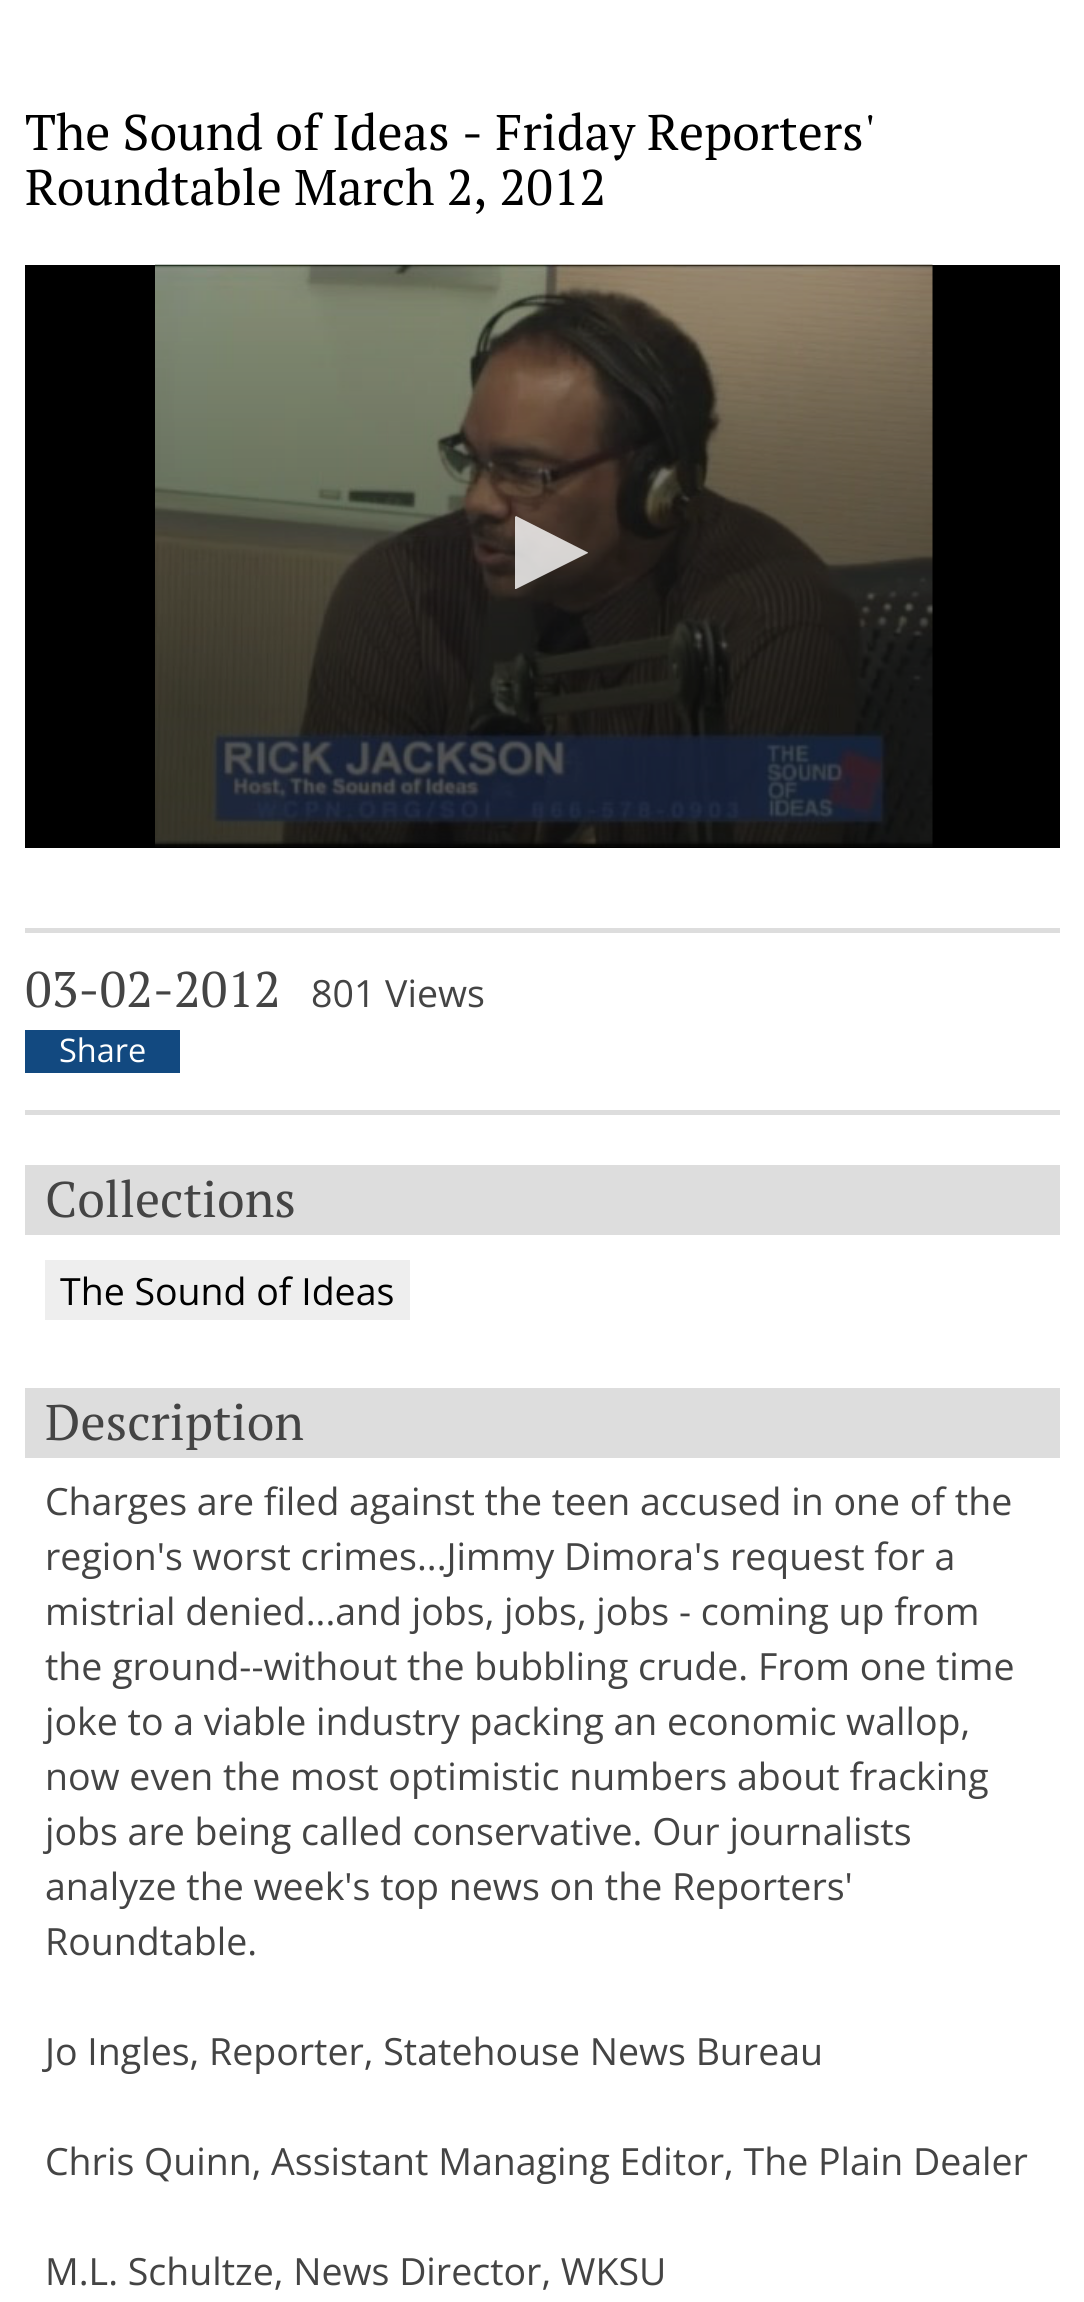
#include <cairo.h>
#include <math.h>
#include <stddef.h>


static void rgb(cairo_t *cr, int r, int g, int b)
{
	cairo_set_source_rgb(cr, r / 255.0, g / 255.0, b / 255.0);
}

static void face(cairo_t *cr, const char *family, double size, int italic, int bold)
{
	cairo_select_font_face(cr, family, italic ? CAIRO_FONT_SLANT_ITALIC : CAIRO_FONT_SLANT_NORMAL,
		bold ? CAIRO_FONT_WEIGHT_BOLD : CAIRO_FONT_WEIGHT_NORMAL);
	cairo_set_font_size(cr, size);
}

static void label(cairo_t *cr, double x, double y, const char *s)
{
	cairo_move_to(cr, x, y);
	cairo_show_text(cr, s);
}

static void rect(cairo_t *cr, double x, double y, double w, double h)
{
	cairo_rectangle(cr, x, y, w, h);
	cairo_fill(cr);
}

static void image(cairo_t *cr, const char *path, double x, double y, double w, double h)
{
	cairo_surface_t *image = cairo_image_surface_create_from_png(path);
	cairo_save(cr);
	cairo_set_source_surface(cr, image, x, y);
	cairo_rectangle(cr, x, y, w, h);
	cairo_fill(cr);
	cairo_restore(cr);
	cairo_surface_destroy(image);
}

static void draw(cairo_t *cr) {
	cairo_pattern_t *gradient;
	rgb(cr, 255, 255, 255);
	cairo_paint(cr);
	face(cr, "PT Serif", 50, 0, 0);
	rgb(cr, 0, 0, 0);
	label(cr, 25, 150, "The Sound of Ideas - Friday Reporters'");
	label(cr, 25, 205, "Roundtable March 2, 2012");
	rect(cr, 25, 265, 1035, 583);
	image(cr, "image0.png", 155, 264, 778, 583);
	gradient = cairo_pattern_create_linear(542, 247, 543, 848);
	cairo_pattern_add_color_stop_rgba(gradient, 0, 0, 0, 0, 0);
	cairo_pattern_add_color_stop_rgba(gradient, 0.77, 0, 0, 0, 0.4);
	cairo_pattern_add_color_stop_rgba(gradient, 1, 0, 0, 0, 0.4);
	cairo_set_source(cr, gradient);
	cairo_pattern_destroy(gradient);
	rect(cr, 155, 271, 778, 576);
	cairo_set_source_rgba(cr, 1, 1, 1, 0.8);
	cairo_new_path(cr);
	cairo_move_to(cr, 516, 589);
	cairo_curve_to(cr, 516, 589, 515, 589, 515, 589);
	cairo_line_to(cr, 515, 517);
	cairo_line_to(cr, 516, 516);
	cairo_line_to(cr, 587, 552);
	cairo_curve_to(cr, 588, 552, 588, 553, 588, 553);
	cairo_close_path(cr);
	cairo_fill(cr);
	rgb(cr, 221, 221, 221);
	rect(cr, 25, 928, 1035, 5);
	rect(cr, 25, 1110, 1035, 5);
	rgb(cr, 68, 68, 68);
	label(cr, 25, 1007, "03-02-2012");
	face(cr, "Open Sans", 37.5, 0, 0);
	label(cr, 311, 1007, "801 Views");
	rgb(cr, 18, 73, 128);
	rect(cr, 25, 1030, 155, 43);
	face(cr, "Open Sans", 32.5, 0, 0);
	rgb(cr, 255, 255, 255);
	label(cr, 59, 1062, "Share");
	rgb(cr, 221, 221, 221);
	rect(cr, 25, 1165, 1035, 70);
	face(cr, "PT Serif", 50, 0, 0);
	rgb(cr, 68, 68, 68);
	label(cr, 45, 1217, "Collections");
	rgb(cr, 238, 238, 238);
	rect(cr, 45, 1260, 365, 60);
	face(cr, "Open Sans", 37.5, 0, 0);
	rgb(cr, 0, 0, 0);
	label(cr, 60, 1305, "The Sound of Ideas");
	rgb(cr, 221, 221, 221);
	rect(cr, 25, 1388, 1035, 70);
	face(cr, "PT Serif", 50, 0, 0);
	rgb(cr, 68, 68, 68);
	label(cr, 45, 1440, "Description");
	face(cr, "Open Sans", 37.5, 0, 0);
	label(cr, 45, 1515, "Charges are filed against the teen accused in one of the");
	label(cr, 45, 1570, "region's worst crimes...Jimmy Dimora's request for a");
	label(cr, 45, 1625, "mistrial denied...and jobs, jobs, jobs - coming up from");
	label(cr, 45, 1680, "the ground--without the bubbling crude. From one time");
	label(cr, 45, 1735, "joke to a viable industry packing an economic wallop,");
	label(cr, 45, 1790, "now even the most optimistic numbers about fracking");
	label(cr, 45, 1845, "jobs are being called conservative. Our journalists");
	label(cr, 45, 1900, "analyze the week's top news on the Reporters'");
	label(cr, 45, 1955, "Roundtable.");
	label(cr, 45, 2065, "Jo Ingles, Reporter, Statehouse News Bureau");
	label(cr, 45, 2175, "Chris Quinn, Assistant Managing Editor, The Plain Dealer");
	label(cr, 45, 2285, "M.L. Schultze, News Director, WKSU");
}

int main(void) {
	cairo_surface_t *surface = cairo_image_surface_create(CAIRO_FORMAT_RGB24, 1084, 2302);
	cairo_t *cr = cairo_create(surface);
	cairo_font_options_t *options = cairo_font_options_create();
	cairo_font_options_set_hint_metrics(options, CAIRO_HINT_METRICS_OFF);
	cairo_font_options_set_hint_style(options, CAIRO_HINT_STYLE_NONE);
	cairo_set_font_options(cr, options);
	cairo_set_miter_limit(cr, 4);
	draw(cr);
	cairo_surface_write_to_png(surface, "render.png");
	cairo_font_options_destroy(options);
	cairo_destroy(cr);
	cairo_surface_destroy(surface);
	return 0;
}
